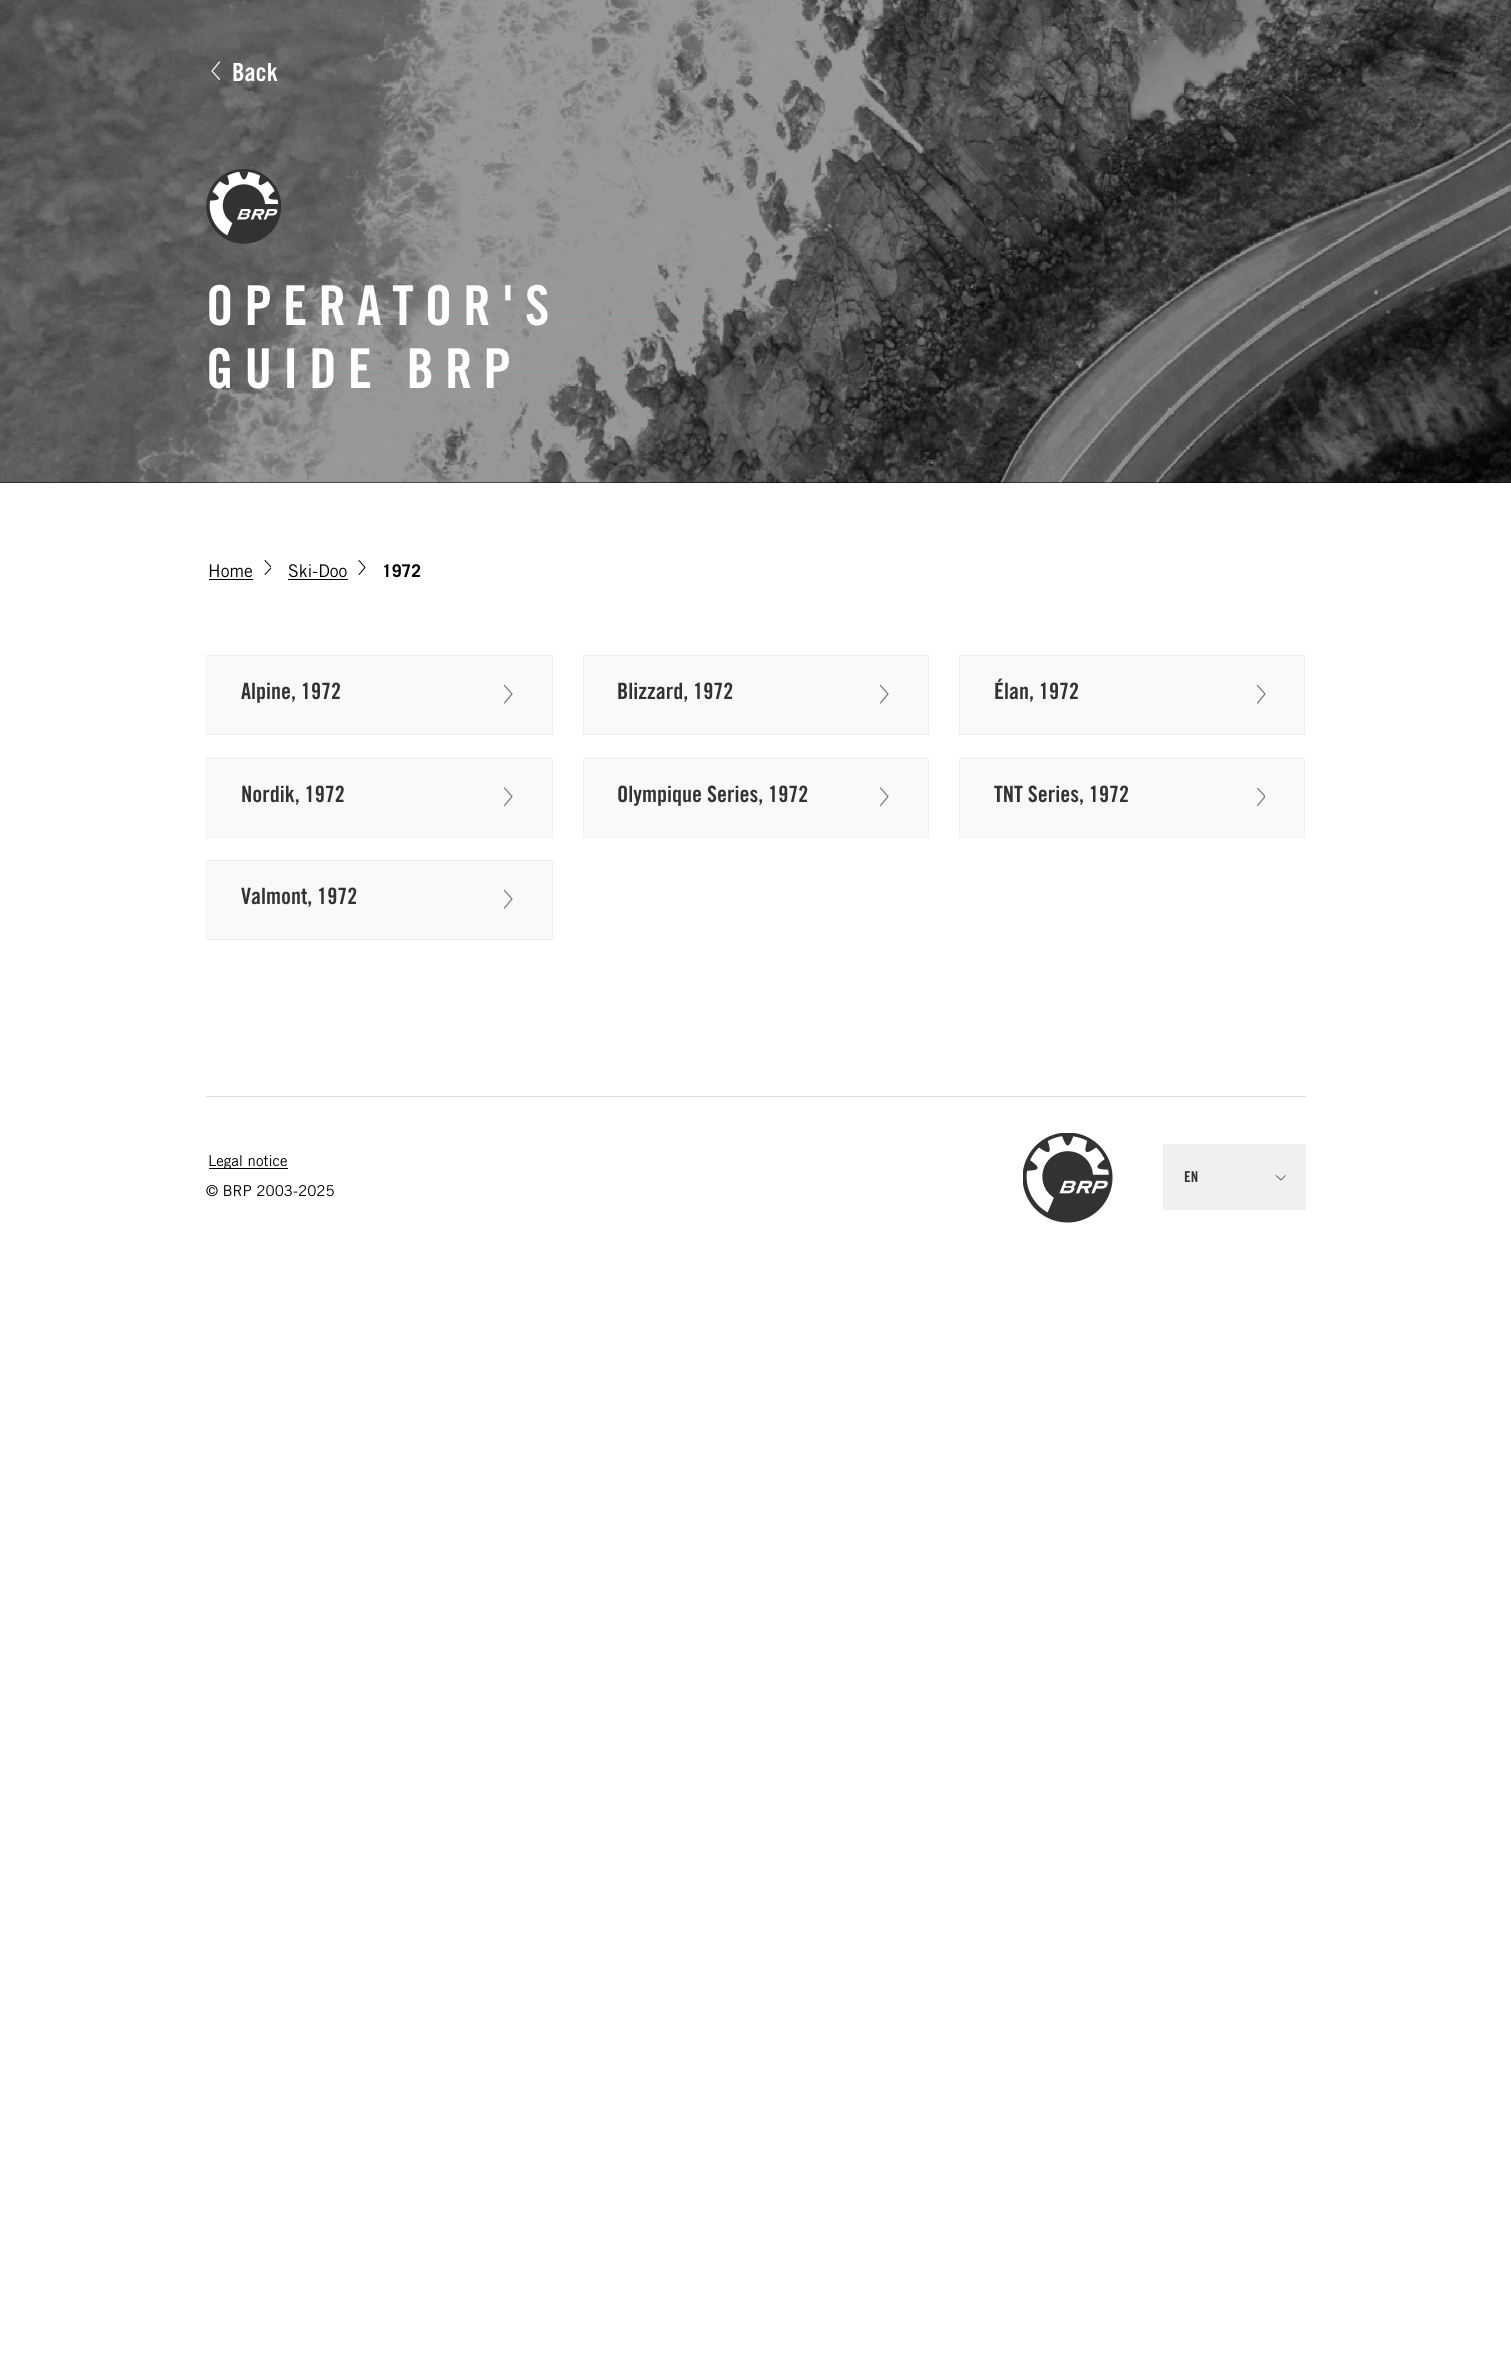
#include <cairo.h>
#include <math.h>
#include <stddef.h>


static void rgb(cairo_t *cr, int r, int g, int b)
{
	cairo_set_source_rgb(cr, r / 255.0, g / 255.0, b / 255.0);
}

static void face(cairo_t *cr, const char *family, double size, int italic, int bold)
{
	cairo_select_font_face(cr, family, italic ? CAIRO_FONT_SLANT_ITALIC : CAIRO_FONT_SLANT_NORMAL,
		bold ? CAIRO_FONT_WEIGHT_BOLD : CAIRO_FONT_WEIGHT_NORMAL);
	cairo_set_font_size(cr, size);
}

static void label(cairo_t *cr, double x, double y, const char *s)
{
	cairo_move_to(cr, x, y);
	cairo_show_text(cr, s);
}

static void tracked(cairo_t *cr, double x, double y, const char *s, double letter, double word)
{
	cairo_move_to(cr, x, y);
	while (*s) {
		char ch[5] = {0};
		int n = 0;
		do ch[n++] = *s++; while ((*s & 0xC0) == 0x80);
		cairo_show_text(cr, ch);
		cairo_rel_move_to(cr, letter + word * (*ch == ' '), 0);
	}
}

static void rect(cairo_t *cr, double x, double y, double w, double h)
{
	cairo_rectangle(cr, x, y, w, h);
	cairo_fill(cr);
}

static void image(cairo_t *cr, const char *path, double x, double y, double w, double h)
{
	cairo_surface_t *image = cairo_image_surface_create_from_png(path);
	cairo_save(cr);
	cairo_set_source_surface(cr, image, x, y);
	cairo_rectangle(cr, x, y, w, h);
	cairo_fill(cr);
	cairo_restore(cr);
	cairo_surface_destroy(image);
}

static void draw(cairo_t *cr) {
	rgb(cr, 255, 255, 255);
	cairo_paint(cr);
	rgb(cr, 0, 0, 0);
	rect(cr, 0, 482, 1511, 1);
	image(cr, "image0.png", 0, 0, 1511, 483);
	cairo_new_path(cr);
	cairo_move_to(cr, 219.5, 62);
	cairo_line_to(cr, 212, 71);
	cairo_line_to(cr, 219.5, 79.5);
	rgb(cr, 255, 255, 255);
	cairo_set_line_width(cr, 1.2);
	cairo_set_line_cap(cr, CAIRO_LINE_CAP_ROUND);
	cairo_set_line_join(cr, CAIRO_LINE_JOIN_ROUND);
	cairo_stroke(cr);
	face(cr, "Trade Gothic", 25, 0, 1);
	label(cr, 232, 81, "Back");
	image(cr, "image1.png", 206, 169, 75, 75);
	face(cr, "Trade Gothic", 55, 0, 1);
	tracked(cr, 206, 325, "OPERATOR'S", 11, 0);
	tracked(cr, 206, 388, "GUIDE BRP", 11, 0);
	face(cr, "Trade Gothic", 17.5, 0, 0);
	rgb(cr, 0, 0, 0);
	label(cr, 208, 577, "Home");
	rect(cr, 209, 579, 44, 1);
	cairo_save(cr);
	cairo_rectangle(cr, 264, 558, 7, 20);
	cairo_clip(cr);
	cairo_new_path(cr);
	cairo_move_to(cr, 265, 574.5);
	cairo_line_to(cr, 271.5, 567.5);
	cairo_line_to(cr, 265, 560.5);
	cairo_set_line_width(cr, 1);
	cairo_stroke(cr);
	cairo_restore(cr);
	label(cr, 288, 577, "Ski-Doo");
	rect(cr, 288, 579, 60, 1);
	cairo_new_path(cr);
	cairo_move_to(cr, 359, 574.5);
	cairo_line_to(cr, 365, 567.5);
	cairo_line_to(cr, 359, 560.5);
	cairo_set_line_width(cr, 1);
	cairo_stroke(cr);
	face(cr, "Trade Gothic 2", 17.5, 0, 1);
	label(cr, 382, 577, "1972");
	rgb(cr, 249, 249, 249);
	cairo_rectangle(cr, 206.5, 655.5, 346, 79);
	cairo_fill_preserve(cr);
	rgb(cr, 240, 240, 240);
	cairo_set_line_cap(cr, CAIRO_LINE_CAP_BUTT);
	cairo_set_line_join(cr, CAIRO_LINE_JOIN_MITER);
	cairo_stroke(cr);
	face(cr, "Trade Gothic", 22.5, 0, 1);
	rgb(cr, 51, 49, 50);
	label(cr, 241, 699, "Alpine, 1972");
	cairo_new_path(cr);
	cairo_move_to(cr, 504.5, 703);
	cairo_line_to(cr, 512, 694);
	cairo_line_to(cr, 504.5, 685.5);
	rgb(cr, 118, 118, 118);
	cairo_set_line_width(cr, 1.2);
	cairo_set_line_cap(cr, CAIRO_LINE_CAP_ROUND);
	cairo_set_line_join(cr, CAIRO_LINE_JOIN_ROUND);
	cairo_stroke(cr);
	rgb(cr, 249, 249, 249);
	cairo_rectangle(cr, 583.5, 655.5, 345, 79);
	cairo_fill_preserve(cr);
	rgb(cr, 240, 240, 240);
	cairo_set_line_width(cr, 1);
	cairo_set_line_cap(cr, CAIRO_LINE_CAP_BUTT);
	cairo_set_line_join(cr, CAIRO_LINE_JOIN_MITER);
	cairo_stroke(cr);
	rgb(cr, 51, 49, 50);
	label(cr, 617, 699, "Blizzard, 1972");
	cairo_new_path(cr);
	cairo_move_to(cr, 880.5, 703);
	cairo_line_to(cr, 888, 694);
	cairo_line_to(cr, 880.5, 685.5);
	rgb(cr, 118, 118, 118);
	cairo_set_line_width(cr, 1.2);
	cairo_set_line_cap(cr, CAIRO_LINE_CAP_ROUND);
	cairo_set_line_join(cr, CAIRO_LINE_JOIN_ROUND);
	cairo_stroke(cr);
	rgb(cr, 249, 249, 249);
	cairo_rectangle(cr, 959.5, 655.5, 345, 79);
	cairo_fill_preserve(cr);
	rgb(cr, 240, 240, 240);
	cairo_set_line_width(cr, 1);
	cairo_set_line_cap(cr, CAIRO_LINE_CAP_BUTT);
	cairo_set_line_join(cr, CAIRO_LINE_JOIN_MITER);
	cairo_stroke(cr);
	rgb(cr, 51, 49, 50);
	label(cr, 994, 699, "Élan, 1972");
	cairo_new_path(cr);
	cairo_move_to(cr, 1257.5, 703);
	cairo_line_to(cr, 1265, 694);
	cairo_line_to(cr, 1257.5, 685.5);
	rgb(cr, 118, 118, 118);
	cairo_set_line_width(cr, 1.2);
	cairo_set_line_cap(cr, CAIRO_LINE_CAP_ROUND);
	cairo_set_line_join(cr, CAIRO_LINE_JOIN_ROUND);
	cairo_stroke(cr);
	rgb(cr, 249, 249, 249);
	cairo_rectangle(cr, 206.5, 758.5, 346, 79);
	cairo_fill_preserve(cr);
	rgb(cr, 240, 240, 240);
	cairo_set_line_width(cr, 1);
	cairo_set_line_cap(cr, CAIRO_LINE_CAP_BUTT);
	cairo_set_line_join(cr, CAIRO_LINE_JOIN_MITER);
	cairo_stroke(cr);
	rgb(cr, 51, 49, 50);
	label(cr, 241, 802, "Nordik, 1972");
	cairo_new_path(cr);
	cairo_move_to(cr, 504.5, 805.5);
	cairo_line_to(cr, 512, 796.5);
	cairo_line_to(cr, 504.5, 788);
	rgb(cr, 118, 118, 118);
	cairo_set_line_width(cr, 1.2);
	cairo_set_line_cap(cr, CAIRO_LINE_CAP_ROUND);
	cairo_set_line_join(cr, CAIRO_LINE_JOIN_ROUND);
	cairo_stroke(cr);
	rgb(cr, 249, 249, 249);
	cairo_rectangle(cr, 583.5, 758.5, 345, 79);
	cairo_fill_preserve(cr);
	rgb(cr, 240, 240, 240);
	cairo_set_line_width(cr, 1);
	cairo_set_line_cap(cr, CAIRO_LINE_CAP_BUTT);
	cairo_set_line_join(cr, CAIRO_LINE_JOIN_MITER);
	cairo_stroke(cr);
	rgb(cr, 51, 49, 50);
	label(cr, 617, 802, "Olympique Series, 1972");
	cairo_new_path(cr);
	cairo_move_to(cr, 880.5, 805.5);
	cairo_line_to(cr, 888, 796.5);
	cairo_line_to(cr, 880.5, 788);
	rgb(cr, 118, 118, 118);
	cairo_set_line_width(cr, 1.2);
	cairo_set_line_cap(cr, CAIRO_LINE_CAP_ROUND);
	cairo_set_line_join(cr, CAIRO_LINE_JOIN_ROUND);
	cairo_stroke(cr);
	rgb(cr, 249, 249, 249);
	cairo_rectangle(cr, 959.5, 758.5, 345, 79);
	cairo_fill_preserve(cr);
	rgb(cr, 240, 240, 240);
	cairo_set_line_width(cr, 1);
	cairo_set_line_cap(cr, CAIRO_LINE_CAP_BUTT);
	cairo_set_line_join(cr, CAIRO_LINE_JOIN_MITER);
	cairo_stroke(cr);
	rgb(cr, 51, 49, 50);
	label(cr, 994, 802, "TNT Series, 1972");
	cairo_save(cr);
	cairo_rectangle(cr, 1256, 788, 9, 18);
	cairo_clip(cr);
	cairo_new_path(cr);
	cairo_move_to(cr, 1257.5, 805.5);
	cairo_line_to(cr, 1265, 796.5);
	cairo_line_to(cr, 1257.5, 788);
	rgb(cr, 118, 118, 118);
	cairo_set_line_width(cr, 1.2);
	cairo_set_line_cap(cr, CAIRO_LINE_CAP_ROUND);
	cairo_set_line_join(cr, CAIRO_LINE_JOIN_ROUND);
	cairo_stroke(cr);
	cairo_restore(cr);
	rgb(cr, 249, 249, 249);
	cairo_rectangle(cr, 206.5, 860.5, 346, 79);
	cairo_fill_preserve(cr);
	rgb(cr, 240, 240, 240);
	cairo_stroke(cr);
	rgb(cr, 51, 49, 50);
	label(cr, 241, 904, "Valmont, 1972");
	cairo_new_path(cr);
	cairo_move_to(cr, 504.5, 908);
	cairo_line_to(cr, 512, 899);
	cairo_line_to(cr, 504.5, 890.5);
	rgb(cr, 118, 118, 118);
	cairo_set_line_width(cr, 1.2);
	cairo_set_line_cap(cr, CAIRO_LINE_CAP_ROUND);
	cairo_set_line_join(cr, CAIRO_LINE_JOIN_ROUND);
	cairo_stroke(cr);
	rgb(cr, 221, 221, 221);
	rect(cr, 206, 1096, 1100, 1);
	rgb(cr, 0, 0, 0);
	rect(cr, 209, 1168, 79, 1);
	face(cr, "Trade Gothic", 15, 0, 0);
	label(cr, 208, 1166, "Legal notice");
	label(cr, 206, 1196, "© BRP 2003-2025");
	image(cr, "image2.png", 1023, 1133, 90, 90);
	rgb(cr, 240, 240, 240);
	rect(cr, 1163, 1144, 143, 66);
	face(cr, "Trade Gothic", 15, 0, 1);
	rgb(cr, 51, 49, 50);
	label(cr, 1184, 1182, "EN");
	cairo_save(cr);
	cairo_new_path(cr);
	cairo_move_to(cr, 1271, 1180.5);
	cairo_line_to(cr, 1271, 1175.5);
	cairo_line_to(cr, 1290.5, 1175.5);
	cairo_line_to(cr, 1290.5, 1180.5);
	cairo_close_path(cr);
	cairo_clip(cr);
	cairo_new_path(cr);
	cairo_move_to(cr, 1276, 1175.5);
	cairo_line_to(cr, 1281, 1180);
	cairo_line_to(cr, 1285.5, 1175.5);
	cairo_set_line_width(cr, 0.7);
	cairo_stroke(cr);
	cairo_restore(cr);
}

int main(void) {
	cairo_surface_t *surface = cairo_image_surface_create(CAIRO_FORMAT_RGB24, 1511, 2365);
	cairo_t *cr = cairo_create(surface);
	cairo_font_options_t *options = cairo_font_options_create();
	cairo_font_options_set_hint_metrics(options, CAIRO_HINT_METRICS_OFF);
	cairo_font_options_set_hint_style(options, CAIRO_HINT_STYLE_NONE);
	cairo_set_font_options(cr, options);
	cairo_set_miter_limit(cr, 4);
	draw(cr);
	cairo_surface_write_to_png(surface, "render.png");
	cairo_font_options_destroy(options);
	cairo_destroy(cr);
	cairo_surface_destroy(surface);
	return 0;
}
